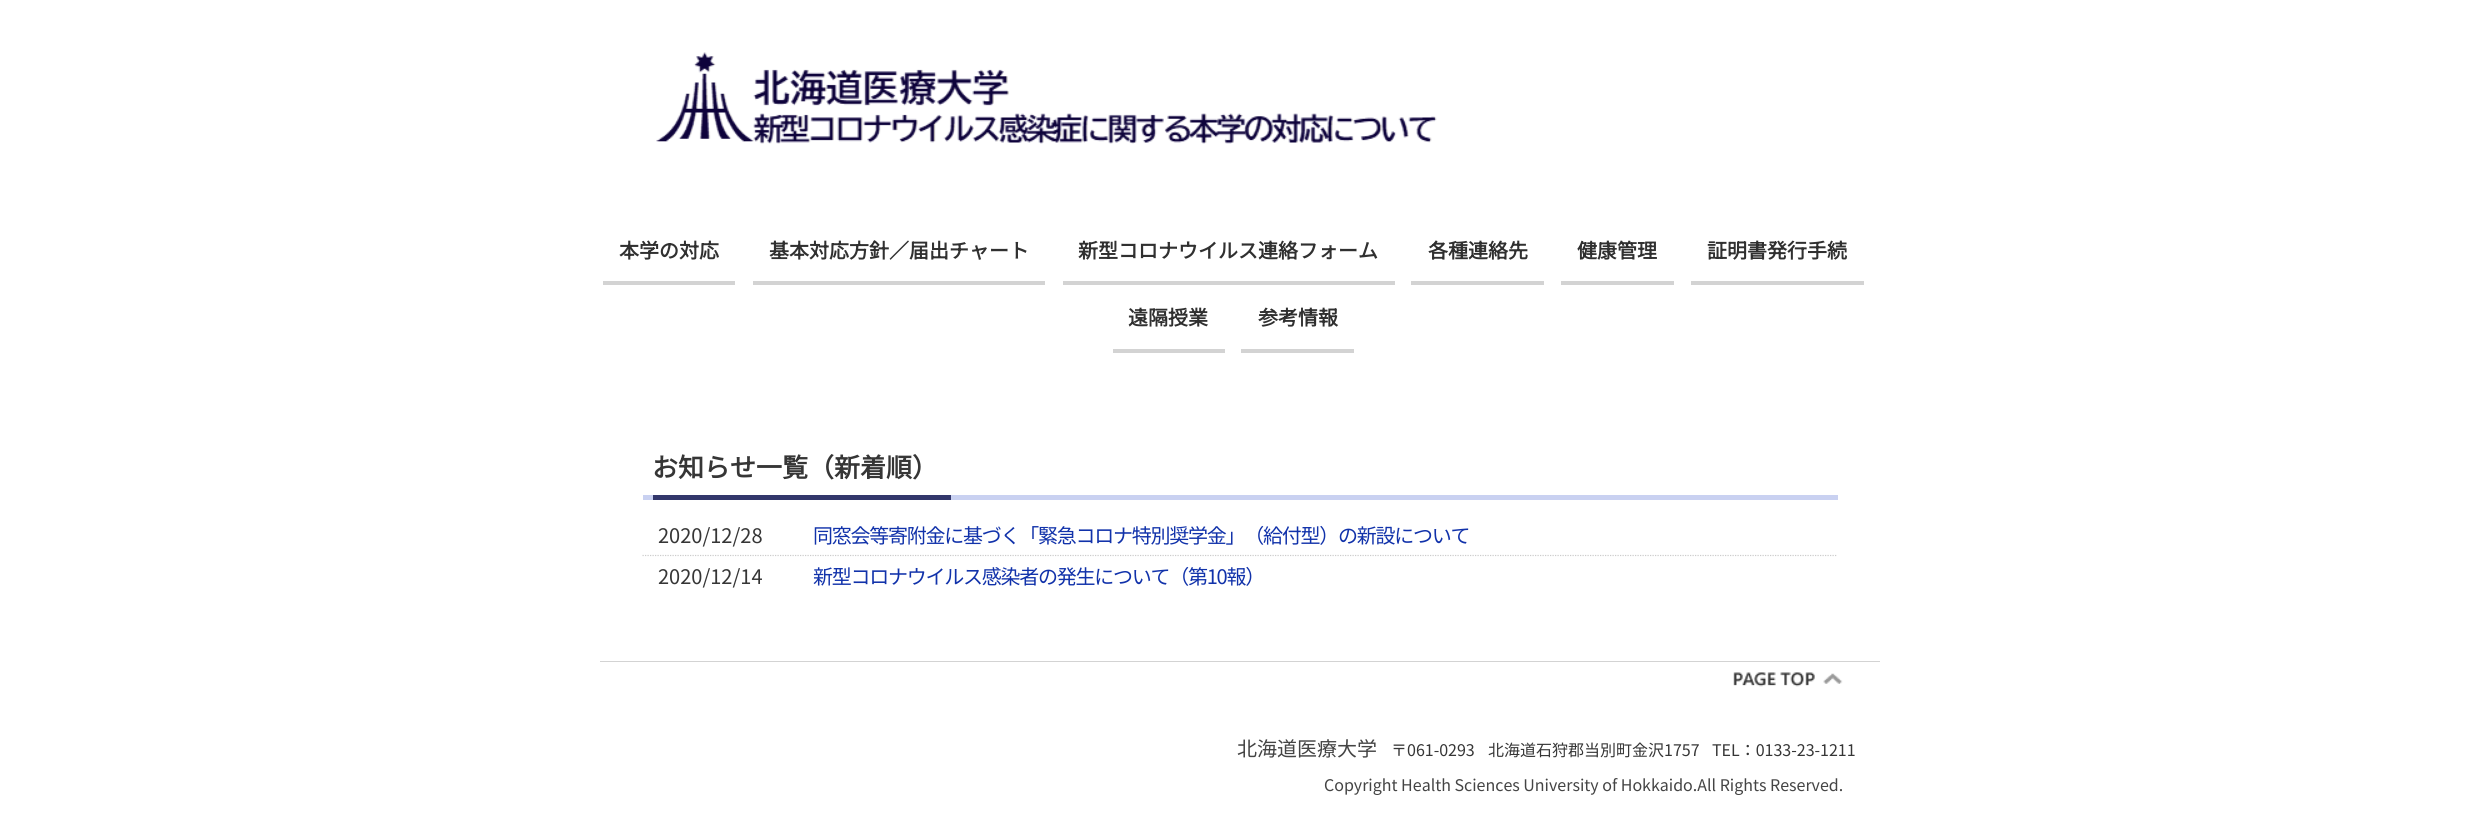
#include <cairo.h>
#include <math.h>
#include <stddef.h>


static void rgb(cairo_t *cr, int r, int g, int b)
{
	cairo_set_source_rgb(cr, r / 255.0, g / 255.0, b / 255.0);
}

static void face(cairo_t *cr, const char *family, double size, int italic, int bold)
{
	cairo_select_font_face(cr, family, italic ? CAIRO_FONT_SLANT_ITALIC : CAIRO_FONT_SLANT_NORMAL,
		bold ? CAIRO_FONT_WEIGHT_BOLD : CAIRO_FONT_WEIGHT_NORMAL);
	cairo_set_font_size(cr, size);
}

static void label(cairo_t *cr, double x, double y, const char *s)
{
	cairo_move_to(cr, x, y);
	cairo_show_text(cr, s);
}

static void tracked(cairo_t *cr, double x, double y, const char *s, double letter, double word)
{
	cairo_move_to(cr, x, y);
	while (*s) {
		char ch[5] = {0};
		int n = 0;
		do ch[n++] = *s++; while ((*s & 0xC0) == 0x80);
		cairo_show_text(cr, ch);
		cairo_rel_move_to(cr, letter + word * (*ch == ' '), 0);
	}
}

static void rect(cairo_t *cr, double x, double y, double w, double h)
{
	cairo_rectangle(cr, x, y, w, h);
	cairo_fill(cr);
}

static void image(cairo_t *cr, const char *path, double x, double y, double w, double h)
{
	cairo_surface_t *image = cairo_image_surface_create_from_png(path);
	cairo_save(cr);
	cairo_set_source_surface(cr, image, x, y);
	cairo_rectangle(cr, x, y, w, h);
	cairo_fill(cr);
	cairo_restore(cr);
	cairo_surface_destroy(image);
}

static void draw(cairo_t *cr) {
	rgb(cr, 255, 255, 255);
	cairo_paint(cr);
	image(cr, "image0.png", 656, 52, 781, 92);
	rgb(cr, 211, 211, 211);
	rect(cr, 603, 281, 132, 4);
	face(cr, "Noto Sans JP", 20, 0, 1);
	rgb(cr, 48, 48, 48);
	label(cr, 619, 258, "本学の対応");
	rgb(cr, 211, 211, 211);
	rect(cr, 753, 281, 292, 4);
	rgb(cr, 48, 48, 48);
	label(cr, 769, 258, "基本対応方針／届出チャート");
	rgb(cr, 211, 211, 211);
	rect(cr, 1063, 281, 332, 4);
	rgb(cr, 48, 48, 48);
	label(cr, 1078, 258, "新型コロナウイルス連絡フォーム");
	rgb(cr, 211, 211, 211);
	rect(cr, 1411, 281, 133, 4);
	rgb(cr, 48, 48, 48);
	label(cr, 1428, 258, "各種連絡先");
	rgb(cr, 211, 211, 211);
	rect(cr, 1561, 281, 113, 4);
	rgb(cr, 48, 48, 48);
	label(cr, 1577, 258, "健康管理");
	rgb(cr, 211, 211, 211);
	rect(cr, 1691, 281, 173, 4);
	rgb(cr, 48, 48, 48);
	label(cr, 1707, 258, "証明書発行手続");
	rgb(cr, 211, 211, 211);
	rect(cr, 1113, 349, 112, 4);
	rgb(cr, 48, 48, 48);
	label(cr, 1128, 325, "遠隔授業");
	rgb(cr, 211, 211, 211);
	rect(cr, 1241, 349, 113, 4);
	rgb(cr, 48, 48, 48);
	label(cr, 1258, 325, "参考情報");
	rgb(cr, 201, 209, 241);
	rect(cr, 643, 495, 1195, 5);
	face(cr, "Noto Sans JP", 26, 0, 1);
	rgb(cr, 54, 54, 54);
	label(cr, 652, 477, "お知らせ一覧（新着順）");
	rgb(cr, 50, 55, 107);
	rect(cr, 653, 495, 298, 5);
	cairo_new_path(cr);
	cairo_move_to(cr, 642.5, 555.5);
	cairo_line_to(cr, 1837.5, 555.5);
	rgb(cr, 204, 204, 204);
	cairo_set_line_width(cr, 1.2);
	cairo_set_dash(cr, (double[]){1.25, 1.25}, 2, 0);
	cairo_stroke(cr);
	face(cr, "Noto Sans JP Thin", 20, 0, 0);
	rgb(cr, 54, 54, 54);
	label(cr, 658, 543, "2020/12/28");
	rgb(cr, 17, 50, 170);
	tracked(cr, 813, 543, "同窓会等寄附金に基づく「緊急コロナ特別奨学金」（給付型）の新設について", -1.25, 0);
	rgb(cr, 54, 54, 54);
	label(cr, 658, 584, "2020/12/14");
	rgb(cr, 17, 50, 170);
	tracked(cr, 813, 584, "新型コロナウイルス感染者の発生について（第10報）", -1.25, 0);
	rgb(cr, 211, 211, 211);
	rect(cr, 600, 661, 1280, 1);
	image(cr, "image1.png", 1733, 672, 110, 15);
	rgb(cr, 68, 68, 68);
	label(cr, 1237, 756, "北海道医療大学");
	face(cr, "Noto Sans JP Thin", 16, 0, 0);
	rgb(cr, 54, 54, 54);
	label(cr, 1391, 756, "〒061-0293");
	label(cr, 1488, 756, "北海道石狩郡当別町金沢1757");
	label(cr, 1712, 756, "TEL：0133-23-1211");
	rgb(cr, 68, 68, 68);
	label(cr, 1324, 791, "Copyright Health Sciences University of Hokkaido.All Rights Reserved.");
}

int main(void) {
	cairo_surface_t *surface = cairo_image_surface_create(CAIRO_FORMAT_RGB24, 2478, 827);
	cairo_t *cr = cairo_create(surface);
	cairo_font_options_t *options = cairo_font_options_create();
	cairo_font_options_set_hint_metrics(options, CAIRO_HINT_METRICS_OFF);
	cairo_font_options_set_hint_style(options, CAIRO_HINT_STYLE_NONE);
	cairo_set_font_options(cr, options);
	cairo_set_miter_limit(cr, 4);
	draw(cr);
	cairo_surface_write_to_png(surface, "render.png");
	cairo_font_options_destroy(options);
	cairo_destroy(cr);
	cairo_surface_destroy(surface);
	return 0;
}
